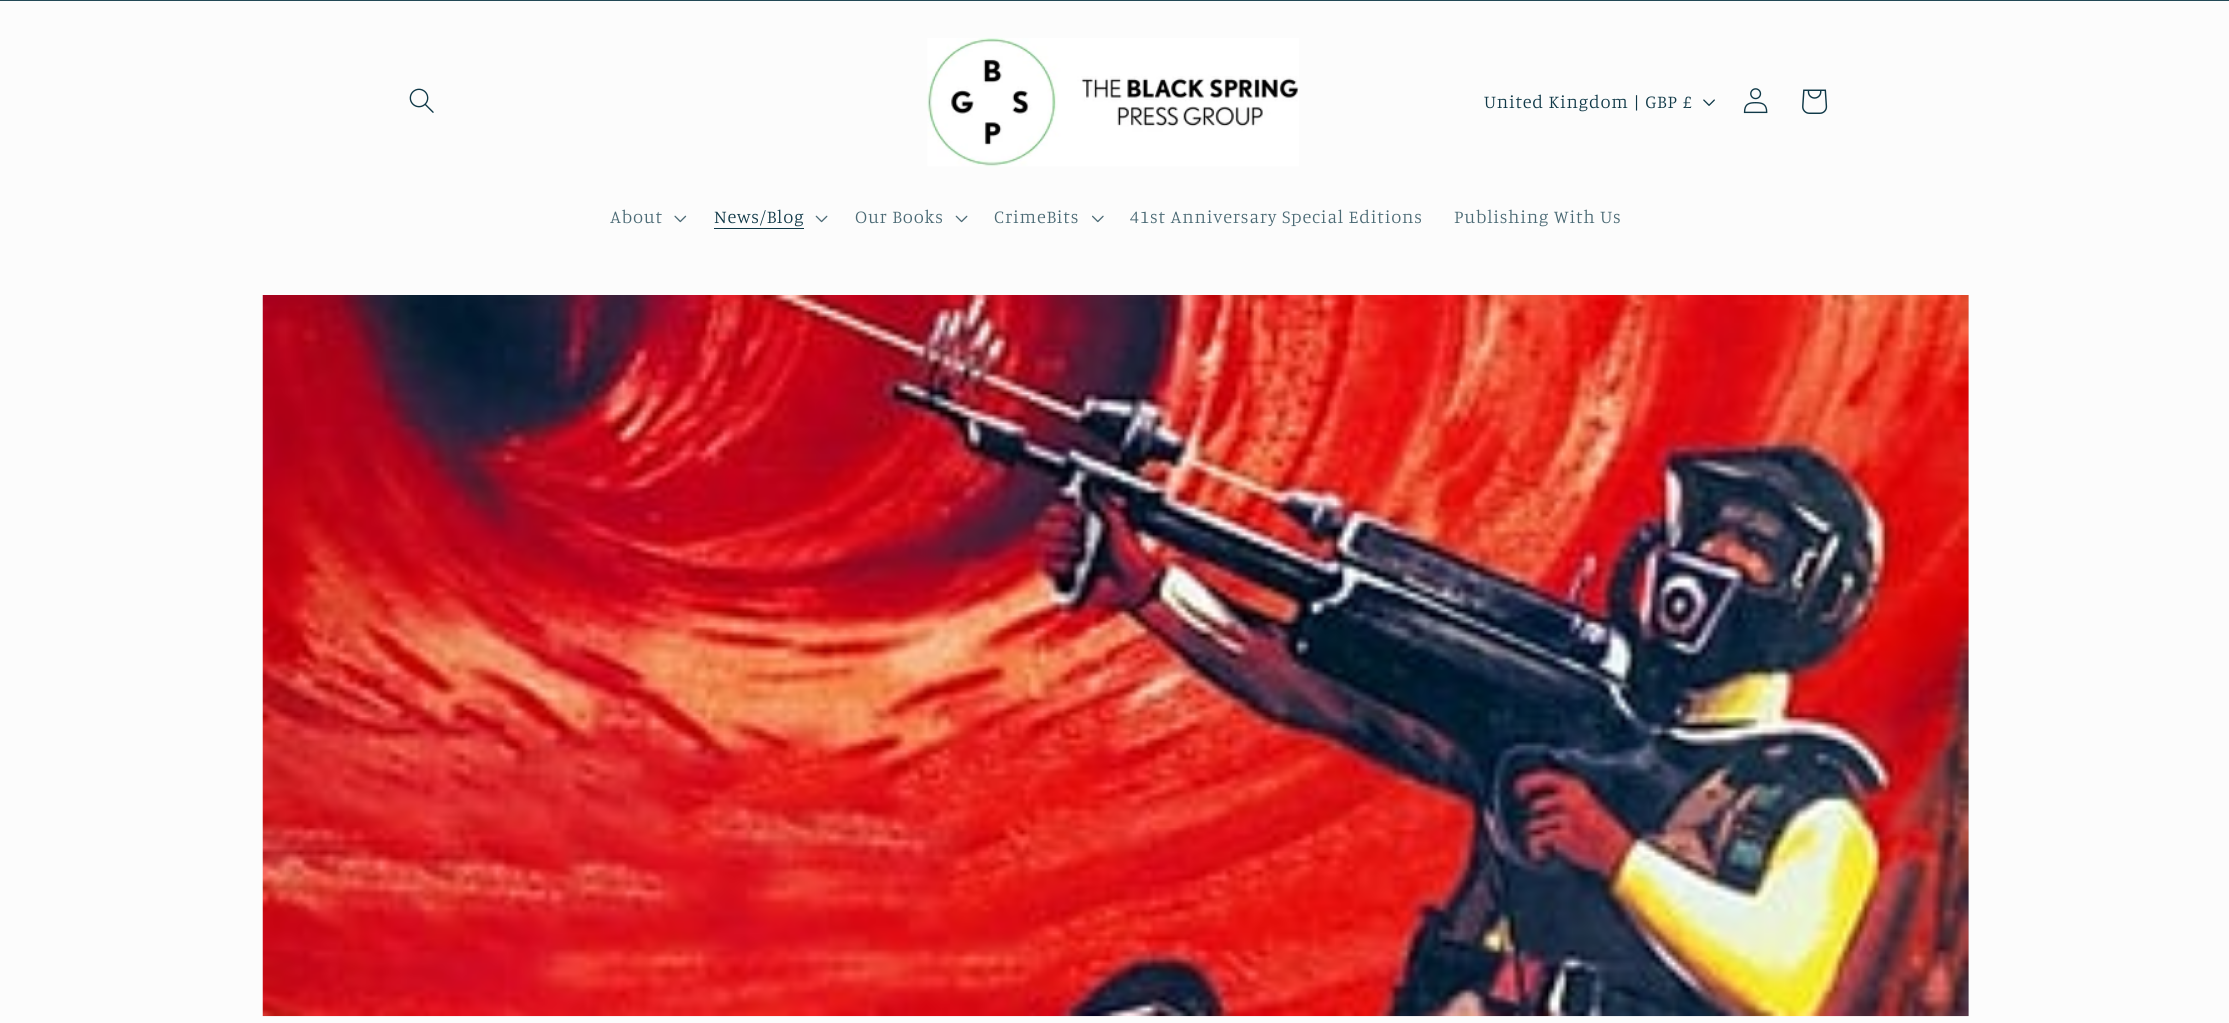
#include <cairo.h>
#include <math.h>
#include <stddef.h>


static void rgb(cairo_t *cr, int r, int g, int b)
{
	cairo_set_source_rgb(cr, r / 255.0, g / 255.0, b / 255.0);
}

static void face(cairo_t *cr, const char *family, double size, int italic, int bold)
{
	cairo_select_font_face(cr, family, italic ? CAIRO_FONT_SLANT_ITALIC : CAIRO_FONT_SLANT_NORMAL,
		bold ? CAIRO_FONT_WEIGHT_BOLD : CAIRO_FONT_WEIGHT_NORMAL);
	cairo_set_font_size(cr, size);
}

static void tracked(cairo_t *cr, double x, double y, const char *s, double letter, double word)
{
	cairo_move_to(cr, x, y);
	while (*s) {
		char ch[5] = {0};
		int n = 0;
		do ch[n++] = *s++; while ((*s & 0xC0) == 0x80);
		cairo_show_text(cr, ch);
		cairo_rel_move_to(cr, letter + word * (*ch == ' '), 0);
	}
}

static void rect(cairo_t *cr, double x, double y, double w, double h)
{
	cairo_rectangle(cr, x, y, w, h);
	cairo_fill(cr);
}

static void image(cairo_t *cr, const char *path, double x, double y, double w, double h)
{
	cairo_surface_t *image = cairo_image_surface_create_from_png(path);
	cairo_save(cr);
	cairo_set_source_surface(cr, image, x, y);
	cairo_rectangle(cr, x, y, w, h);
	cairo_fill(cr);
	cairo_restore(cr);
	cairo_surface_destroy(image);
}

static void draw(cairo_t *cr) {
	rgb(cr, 252, 252, 252);
	cairo_paint(cr);
	rgb(cr, 35, 73, 86);
	rect(cr, 0, 0, 2229, 1);
	image(cr, "image0.png", 409, 88, 25, 25);
	image(cr, "image1.png", 927, 38, 372, 129);
	face(cr, "Manuale Light", 18.4, 0, 0);
	rgb(cr, 16, 57, 72);
	tracked(cr, 1484, 108, "United Kingdom | GBP £", 0.8, 0);
	image(cr, "image2.png", 1703, 99, 12, 7);
	image(cr, "image3.png", 1743, 88, 25, 26);
	image(cr, "image4.png", 1802, 89, 26, 25);
	rgb(cr, 75, 106, 117);
	tracked(cr, 610, 223, "About", 0.8, 0);
	image(cr, "image5.png", 674, 215, 13, 8);
	rgb(cr, 16, 57, 72);
	tracked(cr, 714, 223, "News/Blog", 0.8, 0);
	rect(cr, 714, 228, 90, 1);
	image(cr, "image6.png", 815, 215, 13, 8);
	rgb(cr, 75, 106, 117);
	tracked(cr, 855, 223, "Our Books", 0.8, 0);
	image(cr, "image6.png", 955, 215, 13, 8);
	tracked(cr, 994, 223, "CrimeBits", 0.8, 0);
	image(cr, "image7.png", 1092, 215, 12, 8);
	tracked(cr, 1130, 223, "41st Anniversary Special Editions", 0.8, 0);
	tracked(cr, 1454, 223, "Publishing With Us", 0.8, 0);
	rgb(cr, 231, 235, 237);
	rect(cr, 1968, 295, 1, 721);
	image(cr, "image8.png", 262, 295, 1707, 722);
}

int main(void) {
	cairo_surface_t *surface = cairo_image_surface_create(CAIRO_FORMAT_RGB24, 2229, 1023);
	cairo_t *cr = cairo_create(surface);
	cairo_font_options_t *options = cairo_font_options_create();
	cairo_font_options_set_hint_metrics(options, CAIRO_HINT_METRICS_OFF);
	cairo_font_options_set_hint_style(options, CAIRO_HINT_STYLE_NONE);
	cairo_set_font_options(cr, options);
	cairo_set_miter_limit(cr, 4);
	draw(cr);
	cairo_surface_write_to_png(surface, "render.png");
	cairo_font_options_destroy(options);
	cairo_destroy(cr);
	cairo_surface_destroy(surface);
	return 0;
}
